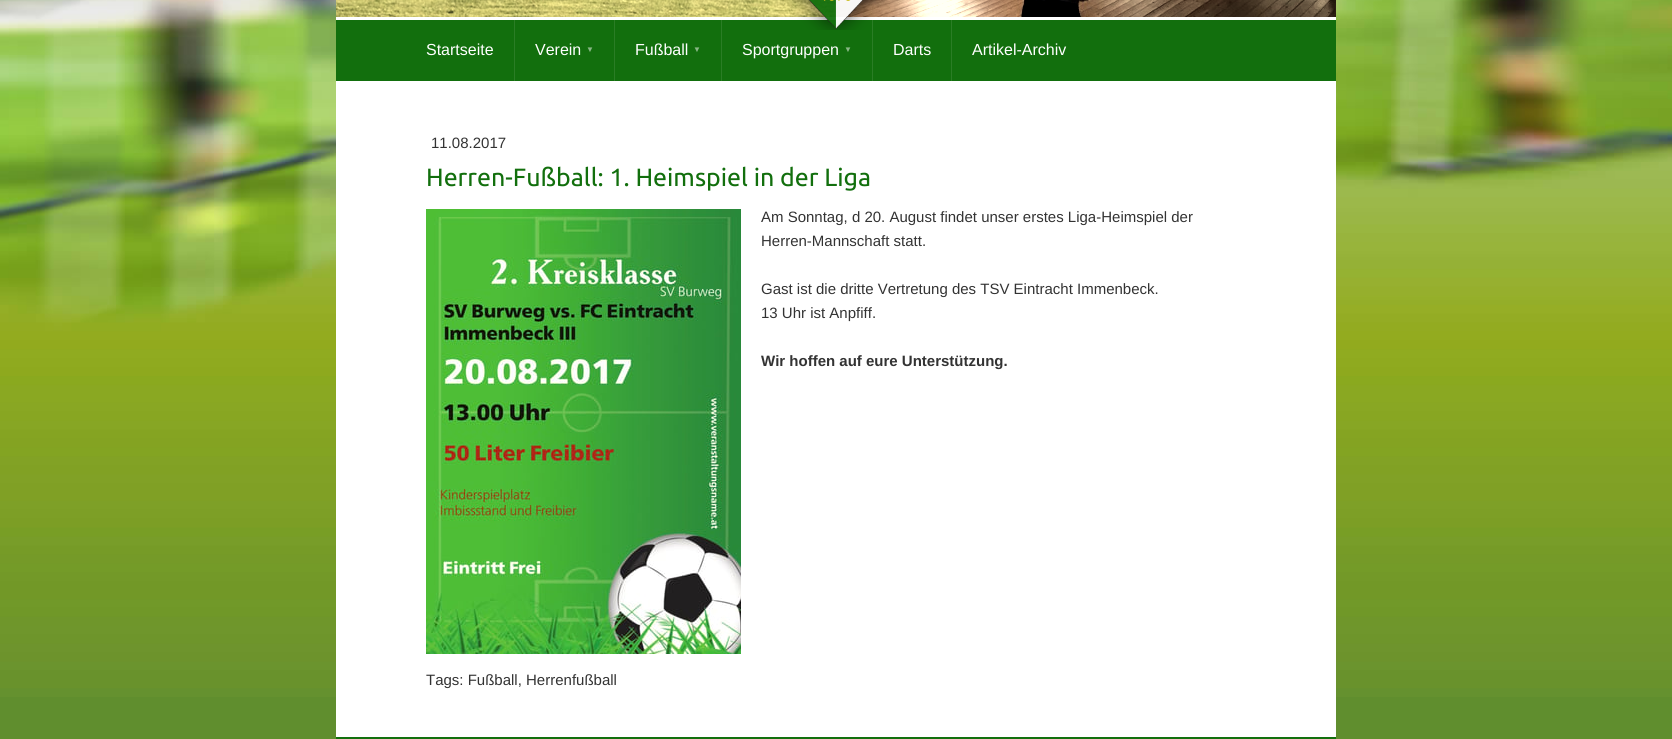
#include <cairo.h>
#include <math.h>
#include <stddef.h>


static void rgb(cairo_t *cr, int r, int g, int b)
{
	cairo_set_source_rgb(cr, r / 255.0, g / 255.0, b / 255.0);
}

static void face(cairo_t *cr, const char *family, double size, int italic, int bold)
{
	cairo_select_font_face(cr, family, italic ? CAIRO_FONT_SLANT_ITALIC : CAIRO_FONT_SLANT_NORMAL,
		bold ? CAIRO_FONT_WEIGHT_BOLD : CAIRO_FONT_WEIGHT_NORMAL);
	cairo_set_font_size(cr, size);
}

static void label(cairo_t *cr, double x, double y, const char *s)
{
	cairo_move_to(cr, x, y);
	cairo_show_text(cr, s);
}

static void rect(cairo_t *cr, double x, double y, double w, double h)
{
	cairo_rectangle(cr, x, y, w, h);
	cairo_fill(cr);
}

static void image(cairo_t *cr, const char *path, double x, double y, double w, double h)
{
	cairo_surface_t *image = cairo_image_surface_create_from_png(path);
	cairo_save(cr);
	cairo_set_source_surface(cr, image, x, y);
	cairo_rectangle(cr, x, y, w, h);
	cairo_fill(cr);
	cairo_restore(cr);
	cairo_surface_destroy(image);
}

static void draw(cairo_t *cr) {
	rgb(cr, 96, 142, 46);
	cairo_paint(cr);
	image(cr, "image0.png", 0, 0, 1672, 697);
	rgb(cr, 255, 255, 255);
	rect(cr, 336, 81, 1000, 656);
	image(cr, "image1.png", 336, 0, 500, 17);
	image(cr, "image2.png", 836, 0, 500, 17);
	rgb(cr, 18, 111, 13);
	rect(cr, 336, 20, 1000, 61);
	rgb(cr, 255, 255, 255);
	rect(cr, 336, 17, 1000, 3);
	rgb(cr, 42, 125, 37);
	rect(cr, 872, 20, 1, 61);
	image(cr, "image3.png", 786, 0, 99, 30);
	rect(cr, 514, 20, 1, 61);
	face(cr, "Liberation Sans", 16, 0, 0);
	rgb(cr, 255, 255, 255);
	label(cr, 426, 55, "Startseite");
	rgb(cr, 42, 125, 37);
	rect(cr, 614, 20, 1, 61);
	rgb(cr, 255, 255, 255);
	label(cr, 535, 55, "Verein");
	face(cr, "Liberation Sans", 8, 0, 0);
	rgb(cr, 137, 183, 134);
	label(cr, 586, 52, "▼");
	rgb(cr, 42, 125, 37);
	rect(cr, 721, 20, 1, 61);
	face(cr, "Liberation Sans", 16, 0, 0);
	rgb(cr, 255, 255, 255);
	label(cr, 635, 55, "Fußball");
	face(cr, "Liberation Sans", 8, 0, 0);
	rgb(cr, 137, 183, 134);
	label(cr, 693, 52, "▼");
	face(cr, "Liberation Sans", 16, 0, 0);
	rgb(cr, 255, 255, 255);
	label(cr, 742, 55, "Sportgruppen");
	face(cr, "Liberation Sans", 8, 0, 0);
	rgb(cr, 137, 183, 134);
	label(cr, 844, 52, "▼");
	rgb(cr, 42, 125, 37);
	rect(cr, 951, 20, 1, 61);
	face(cr, "Liberation Sans", 16, 0, 0);
	rgb(cr, 255, 255, 255);
	label(cr, 893, 55, "Darts");
	label(cr, 972, 55, "Artikel-Archiv");
	face(cr, "Liberation Sans", 15, 0, 0);
	rgb(cr, 51, 51, 51);
	label(cr, 431, 148, "11.08.2017");
	face(cr, "Ubuntu", 25, 0, 0);
	rgb(cr, 18, 111, 13);
	label(cr, 426, 186, "Herren-Fußball: 1. Heimspiel in der Liga");
	image(cr, "image4.png", 426, 209, 315, 445);
	face(cr, "Liberation Sans", 15, 0, 0);
	rgb(cr, 51, 51, 51);
	label(cr, 761, 222, "Am Sonntag, d 20. August findet unser erstes Liga-Heimspiel der");
	label(cr, 761, 246, "Herren-Mannschaft statt.");
	label(cr, 761, 294, "Gast ist die dritte Vertretung des TSV Eintracht Immenbeck.");
	label(cr, 761, 318, "13 Uhr ist Anpfiff.");
	face(cr, "Liberation Sans", 15, 0, 1);
	label(cr, 761, 366, "Wir hoffen auf eure Unterstützung.");
	face(cr, "Liberation Sans", 15, 0, 0);
	label(cr, 426, 685, "Tags: Fußball, Herrenfußball");
	rgb(cr, 18, 111, 13);
	rect(cr, 336, 737, 1000, 2);
}

int main(void) {
	cairo_surface_t *surface = cairo_image_surface_create(CAIRO_FORMAT_RGB24, 1672, 739);
	cairo_t *cr = cairo_create(surface);
	cairo_font_options_t *options = cairo_font_options_create();
	cairo_font_options_set_hint_metrics(options, CAIRO_HINT_METRICS_OFF);
	cairo_font_options_set_hint_style(options, CAIRO_HINT_STYLE_NONE);
	cairo_set_font_options(cr, options);
	cairo_set_miter_limit(cr, 4);
	draw(cr);
	cairo_surface_write_to_png(surface, "render.png");
	cairo_font_options_destroy(options);
	cairo_destroy(cr);
	cairo_surface_destroy(surface);
	return 0;
}
